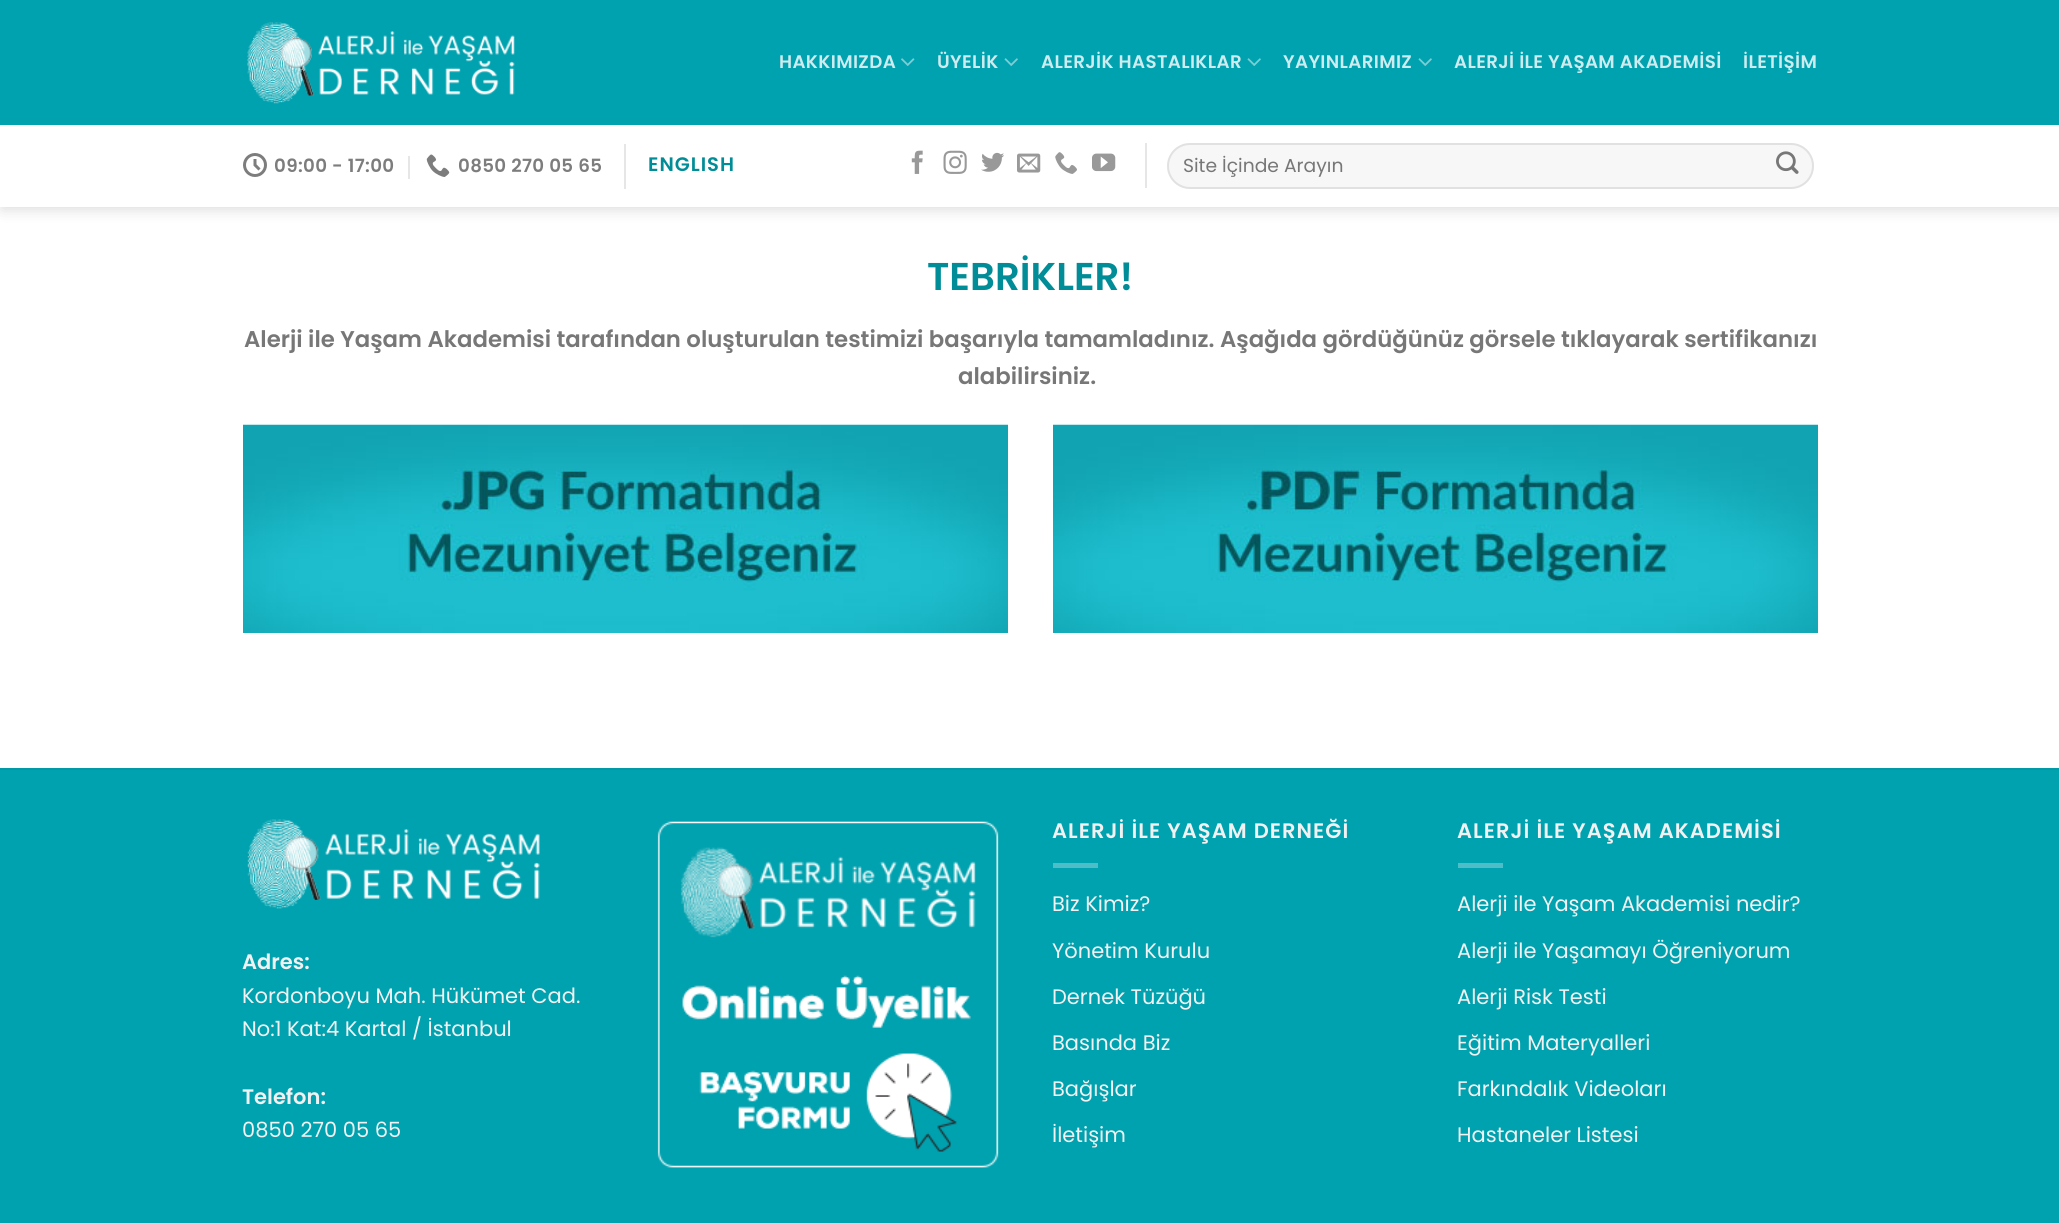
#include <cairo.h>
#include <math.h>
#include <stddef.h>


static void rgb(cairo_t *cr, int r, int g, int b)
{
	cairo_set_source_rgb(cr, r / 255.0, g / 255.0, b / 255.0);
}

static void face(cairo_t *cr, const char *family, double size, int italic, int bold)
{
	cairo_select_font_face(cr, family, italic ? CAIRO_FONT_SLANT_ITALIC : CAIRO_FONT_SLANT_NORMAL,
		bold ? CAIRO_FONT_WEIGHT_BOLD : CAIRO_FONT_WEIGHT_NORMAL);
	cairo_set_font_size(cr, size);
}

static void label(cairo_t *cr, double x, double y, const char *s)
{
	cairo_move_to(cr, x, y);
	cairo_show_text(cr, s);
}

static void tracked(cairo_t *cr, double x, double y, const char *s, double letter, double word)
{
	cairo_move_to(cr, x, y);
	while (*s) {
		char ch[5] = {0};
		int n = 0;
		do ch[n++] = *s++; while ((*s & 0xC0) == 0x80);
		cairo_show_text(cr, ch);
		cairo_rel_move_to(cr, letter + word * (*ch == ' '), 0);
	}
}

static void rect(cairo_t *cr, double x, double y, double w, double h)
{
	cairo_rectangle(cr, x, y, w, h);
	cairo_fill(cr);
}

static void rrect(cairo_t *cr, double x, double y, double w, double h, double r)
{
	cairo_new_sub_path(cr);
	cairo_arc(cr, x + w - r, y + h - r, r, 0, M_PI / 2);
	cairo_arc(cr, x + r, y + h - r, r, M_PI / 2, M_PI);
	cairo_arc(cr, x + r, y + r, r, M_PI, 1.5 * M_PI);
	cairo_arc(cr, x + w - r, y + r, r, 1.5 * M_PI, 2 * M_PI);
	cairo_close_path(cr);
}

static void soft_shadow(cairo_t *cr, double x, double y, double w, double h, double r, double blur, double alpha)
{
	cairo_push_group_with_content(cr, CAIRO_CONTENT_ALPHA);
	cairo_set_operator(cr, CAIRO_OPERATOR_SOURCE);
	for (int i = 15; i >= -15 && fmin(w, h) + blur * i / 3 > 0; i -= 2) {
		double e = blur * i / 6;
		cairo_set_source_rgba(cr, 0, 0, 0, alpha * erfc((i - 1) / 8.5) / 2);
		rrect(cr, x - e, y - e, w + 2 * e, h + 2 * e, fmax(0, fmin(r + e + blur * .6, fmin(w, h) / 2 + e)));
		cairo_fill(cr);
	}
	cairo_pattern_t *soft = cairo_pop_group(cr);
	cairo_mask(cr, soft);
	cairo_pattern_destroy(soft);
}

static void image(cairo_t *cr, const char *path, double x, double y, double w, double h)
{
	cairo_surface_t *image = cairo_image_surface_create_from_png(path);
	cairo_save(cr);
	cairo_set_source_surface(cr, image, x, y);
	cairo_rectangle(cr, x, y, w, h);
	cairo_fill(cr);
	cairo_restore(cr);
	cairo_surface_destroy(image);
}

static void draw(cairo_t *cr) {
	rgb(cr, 255, 255, 255);
	cairo_paint(cr);
	rgb(cr, 0, 0, 0);
	soft_shadow(cr, 2, 2, 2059, 207, 0, 7.5, 0.15);
	rgb(cr, 0, 162, 175);
	rect(cr, 0, 0, 2059, 125);
	image(cr, "image0.png", 247, 22, 268, 82);
	face(cr, "Poppins SemiBold", 18.25, 0, 0);
	rgb(cr, 204, 236, 239);
	tracked(cr, 779, 68, "HAKKIMIZDA", 0.35, 0);
	image(cr, "image1.png", 901, 58, 14, 8);
	tracked(cr, 937, 68, "ÜYELİK", 0.35, 0);
	image(cr, "image2.png", 1004, 58, 14, 8);
	tracked(cr, 1041, 68, "ALERJİK HASTALIKLAR", 0.35, 0);
	image(cr, "image2.png", 1247, 58, 14, 8);
	tracked(cr, 1283, 68, "YAYINLARIMIZ", 0.35, 0);
	image(cr, "image2.png", 1418, 58, 14, 8);
	tracked(cr, 1454, 68, "ALERJİ İLE YAŞAM AKADEMİSİ", 0.35, 0);
	tracked(cr, 1743, 68, "İLETİŞİM", 0.35, 0);
	rgb(cr, 255, 255, 255);
	rect(cr, 0, 125, 2059, 82);
	image(cr, "image3.png", 243, 153, 24, 24);
	rgb(cr, 125, 125, 125);
	tracked(cr, 274, 172, "09:00 - 17:00", 0.35, 0);
	rgb(cr, 230, 230, 230);
	rect(cr, 408, 156, 2, 23);
	image(cr, "image4.png", 426, 154, 24, 23);
	rgb(cr, 125, 125, 125);
	tracked(cr, 458, 172, "0850 270 05 65", 0.35, 0);
	rgb(cr, 230, 230, 230);
	rect(cr, 624, 144, 2, 45);
	face(cr, "Poppins SemiBold", 19.5, 0, 0);
	rgb(cr, 1, 141, 152);
	tracked(cr, 648, 171, "ENGLISH", 1, 0);
	image(cr, "image5.png", 911, 150, 12, 24);
	image(cr, "image6.png", 943, 150, 24, 24);
	image(cr, "image7.png", 981, 152, 23, 20);
	image(cr, "image8.png", 1017, 153, 24, 20);
	image(cr, "image9.png", 1055, 152, 22, 22);
	image(cr, "image10.png", 1092, 153, 24, 19);
	rgb(cr, 230, 230, 230);
	rect(cr, 1145, 143, 2, 45);
	rgb(cr, 247, 247, 247);
	rrect(cr, 1167, 143, 647, 46, 23);
	cairo_fill(cr);
	rrect(cr, 1168, 144, 645, 44, 22);
	cairo_set_source_rgba(cr, 0, 0, 0, 0.09);
	cairo_stroke(cr);
	face(cr, "Poppins", 18.75, 0, 0);
	rgb(cr, 119, 119, 119);
	label(cr, 1183, 172, "Site İçinde Arayın");
	image(cr, "image11.png", 1776, 151, 23, 23);
	face(cr, "Poppins SemiBold", 38.75, 0, 0);
	rgb(cr, 1, 141, 152);
	label(cr, 927, 290, "TEBRİKLER!");
	face(cr, "Poppins SemiBold", 22.8, 0, 0);
	rgb(cr, 119, 119, 119);
	label(cr, 244, 347, "Alerji ile Yaşam Akademisi tarafından oluşturulan testimizi başarıyla tamamladınız. Aşağıda gördüğünüz görsele tıklayarak sertifikanızı");
	label(cr, 958, 384, "alabilirsiniz.");
	image(cr, "image12.png", 243, 424, 765, 209);
	image(cr, "image13.png", 1053, 424, 765, 209);
	rgb(cr, 0, 162, 175);
	rect(cr, 0, 770, 2059, 453);
	rgb(cr, 0, 154, 166);
	rect(cr, 0, 768, 2059, 2);
	image(cr, "image14.png", 247, 819, 293, 90);
	face(cr, "Poppins SemiBold", 21, 0, 0);
	rgb(cr, 241, 241, 241);
	label(cr, 242, 969, "Adres:");
	face(cr, "Poppins", 21, 0, 0);
	label(cr, 242, 1003, "Kordonboyu Mah. Hükümet Cad.");
	label(cr, 242, 1036, "No:1 Kat:4 Kartal / İstanbul");
	face(cr, "Poppins SemiBold", 21, 0, 0);
	label(cr, 242, 1104, "Telefon:");
	face(cr, "Poppins", 21, 0, 0);
	label(cr, 242, 1137, "0850 270 05 65");
	image(cr, "image15.png", 657, 821, 342, 347);
	face(cr, "Poppins SemiBold", 21, 0, 0);
	tracked(cr, 1052, 838, "ALERJİ İLE YAŞAM DERNEĞİ", 1.05, 0);
	rgb(cr, 77, 190, 199);
	rect(cr, 1053, 863, 45, 5);
	face(cr, "Poppins", 21, 0, 0);
	rgb(cr, 241, 241, 241);
	label(cr, 1052, 911, "Biz Kimiz?");
	label(cr, 1052, 958, "Yönetim Kurulu");
	label(cr, 1052, 1004, "Dernek Tüzüğü");
	label(cr, 1052, 1050, "Basında Biz");
	label(cr, 1052, 1096, "Bağışlar");
	label(cr, 1052, 1142, "İletişim");
	face(cr, "Poppins SemiBold", 21, 0, 0);
	tracked(cr, 1457, 838, "ALERJİ İLE YAŞAM AKADEMİSİ", 1.05, 0);
	rgb(cr, 77, 190, 199);
	rect(cr, 1458, 863, 45, 5);
	face(cr, "Poppins", 21, 0, 0);
	rgb(cr, 241, 241, 241);
	label(cr, 1457, 911, "Alerji ile Yaşam Akademisi nedir?");
	label(cr, 1457, 958, "Alerji ile Yaşamayı Öğreniyorum");
	label(cr, 1457, 1004, "Alerji Risk Testi");
	label(cr, 1457, 1050, "Eğitim Materyalleri");
	label(cr, 1457, 1096, "Farkındalık Videoları");
	label(cr, 1457, 1142, "Hastaneler Listesi");
}

int main(void) {
	cairo_surface_t *surface = cairo_image_surface_create(CAIRO_FORMAT_RGB24, 2059, 1223);
	cairo_t *cr = cairo_create(surface);
	cairo_font_options_t *options = cairo_font_options_create();
	cairo_font_options_set_hint_metrics(options, CAIRO_HINT_METRICS_OFF);
	cairo_font_options_set_hint_style(options, CAIRO_HINT_STYLE_NONE);
	cairo_set_font_options(cr, options);
	cairo_set_miter_limit(cr, 4);
	draw(cr);
	cairo_surface_write_to_png(surface, "render.png");
	cairo_font_options_destroy(options);
	cairo_destroy(cr);
	cairo_surface_destroy(surface);
	return 0;
}
